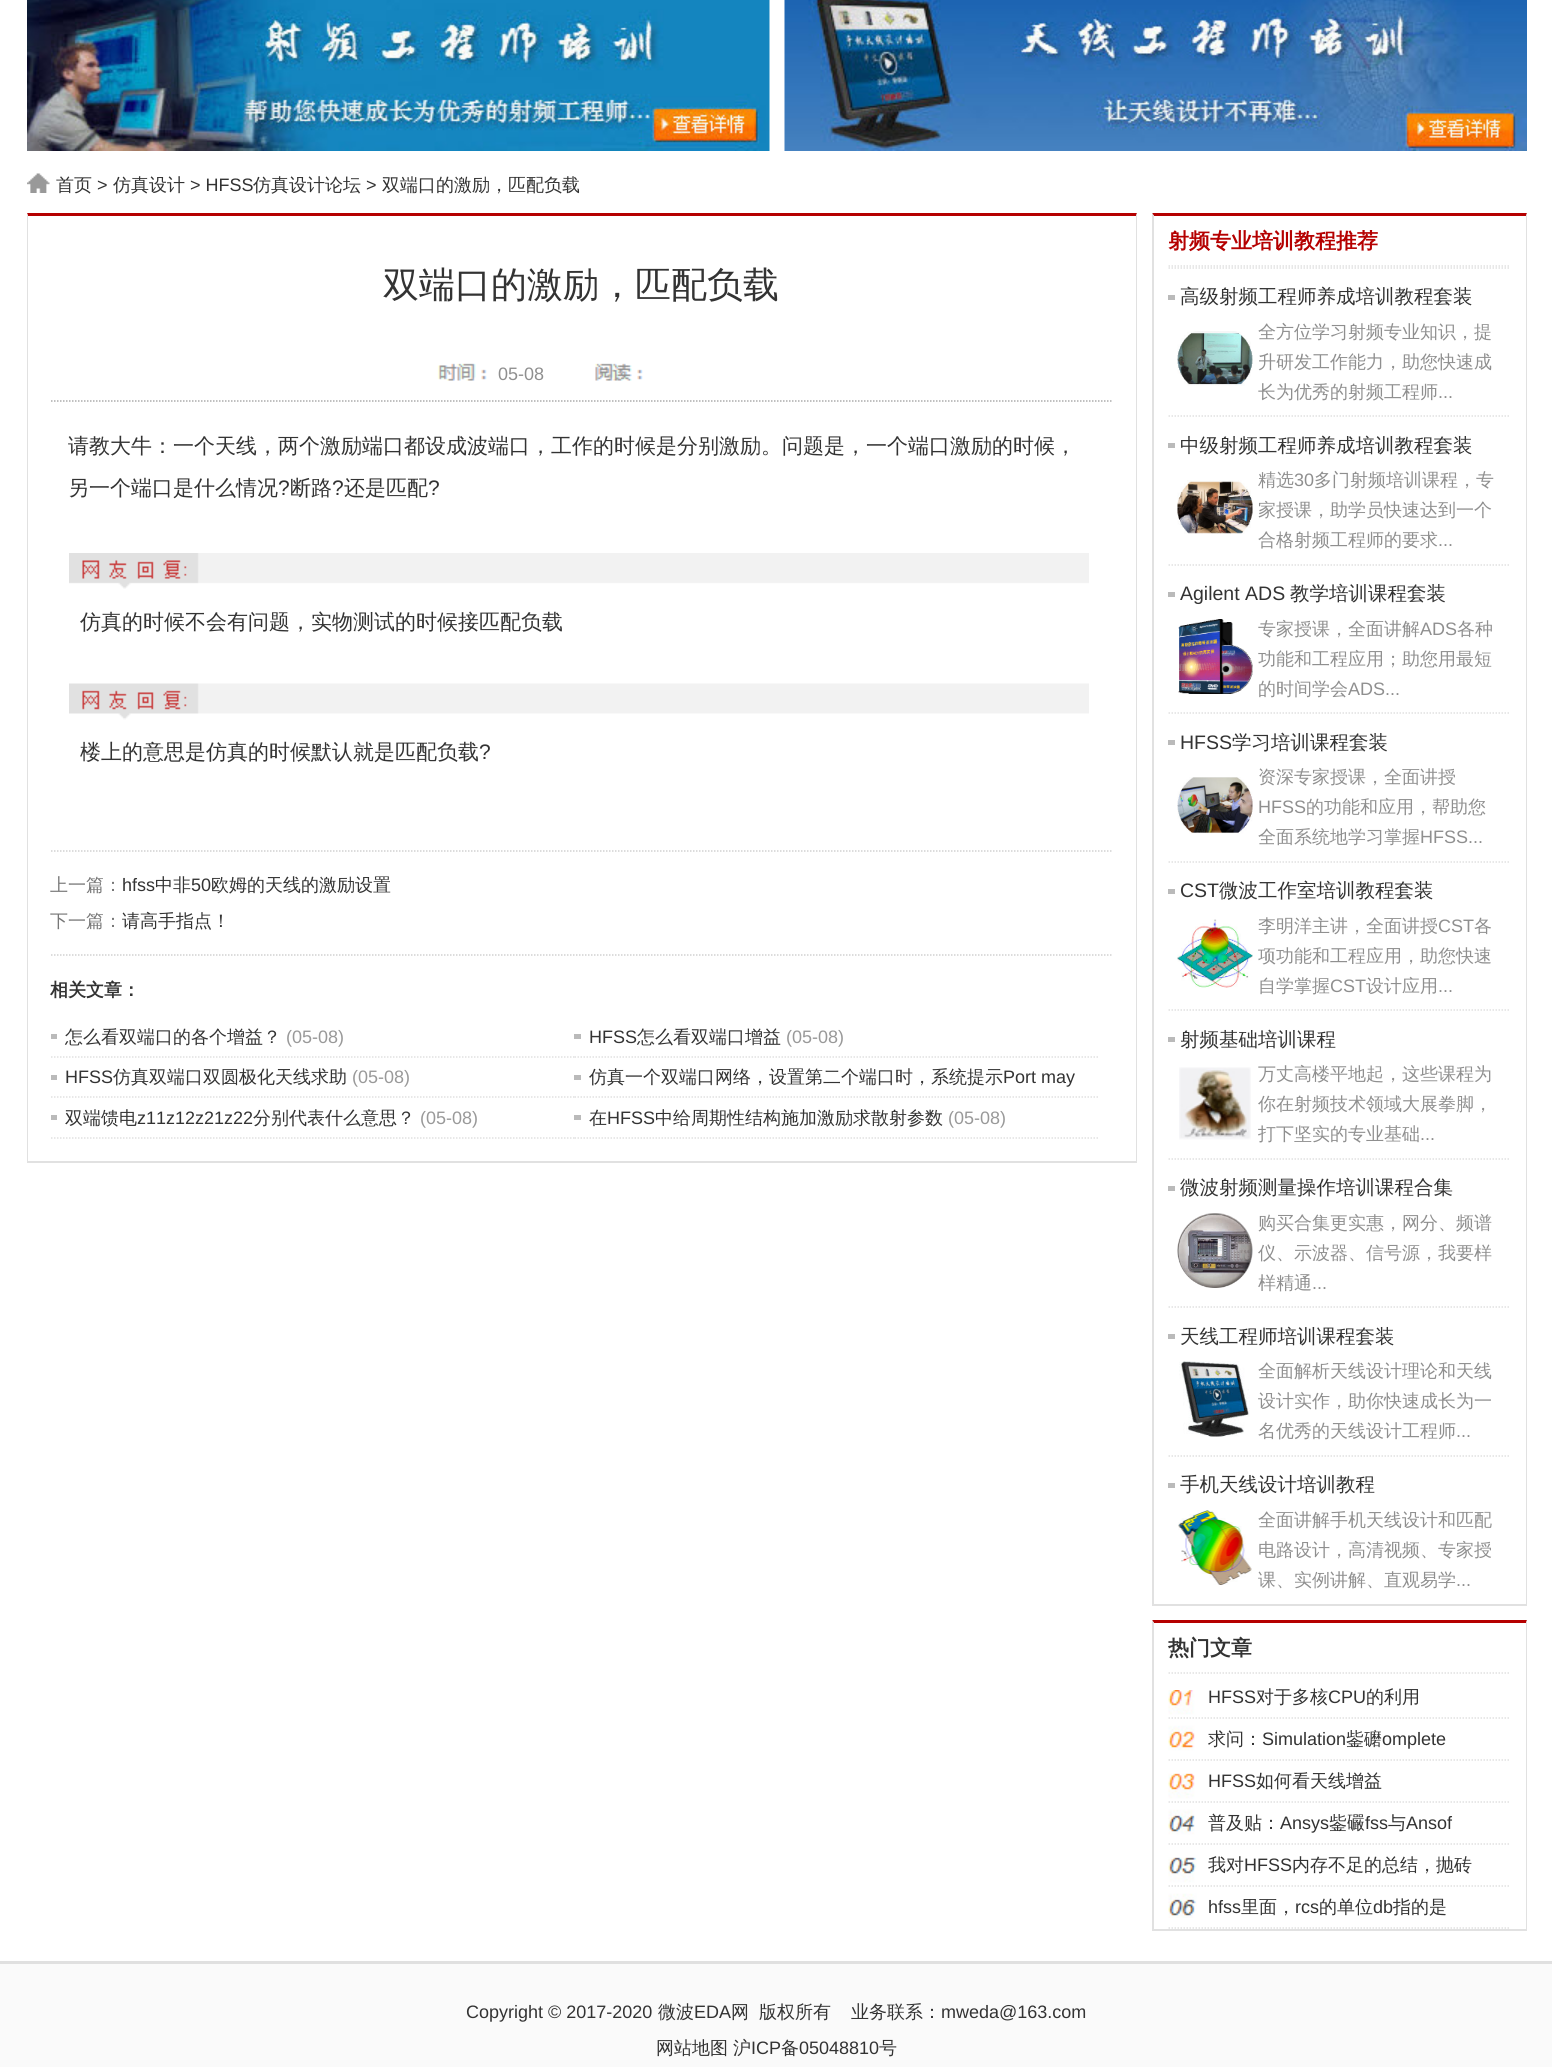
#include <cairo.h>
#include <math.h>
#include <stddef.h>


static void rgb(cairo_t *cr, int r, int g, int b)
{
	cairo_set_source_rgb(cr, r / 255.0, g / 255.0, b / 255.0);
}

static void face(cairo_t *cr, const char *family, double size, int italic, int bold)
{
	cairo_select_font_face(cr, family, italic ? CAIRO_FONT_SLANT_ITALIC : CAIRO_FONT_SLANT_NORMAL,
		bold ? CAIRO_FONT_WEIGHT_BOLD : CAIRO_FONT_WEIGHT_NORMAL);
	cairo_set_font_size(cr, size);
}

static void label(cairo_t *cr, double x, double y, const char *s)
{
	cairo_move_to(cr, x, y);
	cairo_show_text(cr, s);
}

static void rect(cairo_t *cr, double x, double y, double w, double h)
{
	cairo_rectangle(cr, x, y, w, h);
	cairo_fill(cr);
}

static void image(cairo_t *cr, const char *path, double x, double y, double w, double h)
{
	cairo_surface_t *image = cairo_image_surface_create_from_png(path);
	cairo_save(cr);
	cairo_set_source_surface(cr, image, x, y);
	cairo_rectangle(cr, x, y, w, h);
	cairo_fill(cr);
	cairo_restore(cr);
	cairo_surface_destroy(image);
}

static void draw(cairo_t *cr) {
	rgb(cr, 255, 255, 255);
	cairo_paint(cr);
	image(cr, "image0.png", 27, 0, 743, 151);
	image(cr, "image1.png", 784, 0, 743, 151);
	image(cr, "image2.png", 27, 173, 23, 20);
	face(cr, "WenQuanYi Zen Hei Medium", 18, 0, 0);
	rgb(cr, 51, 51, 51);
	label(cr, 56, 191, "首页");
	face(cr, "Liberation Sans", 18, 0, 0);
	label(cr, 97, 191, ">");
	face(cr, "WenQuanYi Zen Hei Medium", 18, 0, 0);
	label(cr, 113, 191, "仿真设计");
	face(cr, "Liberation Sans", 18, 0, 0);
	label(cr, 190, 191, "> HFSS");
	face(cr, "WenQuanYi Zen Hei Medium", 18, 0, 0);
	label(cr, 253, 191, "仿真设计论坛");
	face(cr, "Liberation Sans", 18, 0, 0);
	label(cr, 366, 191, ">");
	face(cr, "WenQuanYi Zen Hei Medium", 18, 0, 0);
	label(cr, 382, 191, "双端口的激励，匹配负载");
	rgb(cr, 181, 0, 0);
	cairo_new_path(cr);
	cairo_move_to(cr, 27, 213);
	cairo_line_to(cr, 1137, 213);
	cairo_line_to(cr, 1136, 216);
	cairo_line_to(cr, 28, 216);
	cairo_close_path(cr);
	cairo_fill(cr);
	rgb(cr, 225, 225, 225);
	cairo_new_path(cr);
	cairo_move_to(cr, 1137, 213);
	cairo_line_to(cr, 1137, 1162);
	cairo_line_to(cr, 1136, 1161);
	cairo_line_to(cr, 1136, 216);
	cairo_close_path(cr);
	cairo_fill(cr);
	rect(cr, 27, 1161, 1110, 2);
	cairo_new_path(cr);
	cairo_move_to(cr, 27, 1162);
	cairo_line_to(cr, 27, 213);
	cairo_line_to(cr, 28, 216);
	cairo_line_to(cr, 28, 1161);
	cairo_close_path(cr);
	cairo_fill(cr);
	face(cr, "WenQuanYi Zen Hei Medium", 36, 0, 0);
	rgb(cr, 51, 51, 51);
	label(cr, 383, 297, "双端口的激励，匹配负载");
	image(cr, "image3.png", 437, 363, 206, 18);
	cairo_new_path(cr);
	cairo_move_to(cr, 51, 401);
	cairo_line_to(cr, 1113, 401);
	rgb(cr, 171, 171, 171);
	cairo_set_line_width(cr, 1.5);
	cairo_set_dash(cr, (double[]){1.5, 1.5}, 2, 0);
	cairo_stroke(cr);
	face(cr, "Liberation Sans", 18, 0, 0);
	rgb(cr, 143, 143, 143);
	label(cr, 498, 380, "05-08");
	face(cr, "WenQuanYi Zen Hei Medium", 21, 0, 0);
	rgb(cr, 51, 51, 51);
	label(cr, 68, 453, "请教大牛：一个天线，两个激励端口都设成波端口，工作的时候是分别激励。问题是，一个端口激励的时候，");
	label(cr, 68, 495, "另一个端口是什么情况");
	face(cr, "Liberation Sans", 21, 0, 0);
	label(cr, 278, 495, "?");
	face(cr, "WenQuanYi Zen Hei Medium", 21, 0, 0);
	label(cr, 290, 495, "断路");
	face(cr, "Liberation Sans", 21, 0, 0);
	label(cr, 332, 495, "?");
	face(cr, "WenQuanYi Zen Hei Medium", 21, 0, 0);
	label(cr, 344, 495, "还是匹配");
	face(cr, "Liberation Sans", 21, 0, 0);
	label(cr, 428, 495, "?");
	image(cr, "image4.png", 69, 553, 1020, 36);
	face(cr, "WenQuanYi Zen Hei Medium", 21, 0, 0);
	label(cr, 80, 629, "仿真的时候不会有问题，实物测试的时候接匹配负载");
	image(cr, "image5.png", 69, 683, 1020, 37);
	label(cr, 80, 759, "楼上的意思是仿真的时候默认就是匹配负载");
	face(cr, "Liberation Sans", 21, 0, 0);
	label(cr, 479, 759, "?");
	cairo_new_path(cr);
	cairo_move_to(cr, 51, 851);
	cairo_line_to(cr, 1113, 851);
	rgb(cr, 209, 209, 209);
	cairo_stroke(cr);
	cairo_new_path(cr);
	cairo_move_to(cr, 51, 955);
	cairo_line_to(cr, 1113, 955);
	cairo_stroke(cr);
	face(cr, "WenQuanYi Zen Hei Medium", 18, 0, 0);
	rgb(cr, 119, 119, 119);
	label(cr, 50, 891, "上一篇：");
	face(cr, "Liberation Sans", 18, 0, 0);
	rgb(cr, 51, 51, 51);
	label(cr, 122, 891, "hfss");
	face(cr, "WenQuanYi Zen Hei Medium", 18, 0, 0);
	label(cr, 155, 891, "中非");
	face(cr, "Liberation Sans", 18, 0, 0);
	label(cr, 191, 891, "50");
	face(cr, "WenQuanYi Zen Hei Medium", 18, 0, 0);
	label(cr, 211, 891, "欧姆的天线的激励设置");
	rgb(cr, 119, 119, 119);
	label(cr, 50, 927, "下一篇：");
	rgb(cr, 51, 51, 51);
	label(cr, 122, 927, "请高手指点！");
	face(cr, "WenQuanYi Zen Hei", 18, 0, 1);
	label(cr, 50, 996, "相关文章：");
	rgb(cr, 186, 186, 186);
	rect(cr, 51, 1034, 6, 5);
	cairo_new_path(cr);
	cairo_move_to(cr, 51, 1057);
	cairo_line_to(cr, 574.5, 1057);
	rgb(cr, 225, 225, 225);
	cairo_stroke(cr);
	face(cr, "WenQuanYi Zen Hei Medium", 18, 0, 0);
	rgb(cr, 51, 51, 51);
	label(cr, 65, 1043, "怎么看双端口的各个增益？");
	face(cr, "Liberation Sans", 18, 0, 0);
	rgb(cr, 153, 153, 153);
	label(cr, 286, 1043, "(05-08)");
	rgb(cr, 186, 186, 186);
	rect(cr, 574, 1034, 7, 5);
	cairo_new_path(cr);
	cairo_move_to(cr, 574.5, 1057);
	cairo_line_to(cr, 1098, 1057);
	rgb(cr, 225, 225, 225);
	cairo_stroke(cr);
	rgb(cr, 51, 51, 51);
	label(cr, 589, 1043, "HFSS");
	face(cr, "WenQuanYi Zen Hei Medium", 18, 0, 0);
	label(cr, 637, 1043, "怎么看双端口增益");
	face(cr, "Liberation Sans", 18, 0, 0);
	rgb(cr, 153, 153, 153);
	label(cr, 786, 1043, "(05-08)");
	rgb(cr, 186, 186, 186);
	rect(cr, 51, 1075, 6, 5);
	cairo_new_path(cr);
	cairo_move_to(cr, 51, 1097);
	cairo_line_to(cr, 574.5, 1097);
	rgb(cr, 225, 225, 225);
	cairo_stroke(cr);
	rgb(cr, 51, 51, 51);
	label(cr, 65, 1083, "HFSS");
	face(cr, "WenQuanYi Zen Hei Medium", 18, 0, 0);
	label(cr, 113, 1083, "仿真双端口双圆极化天线求助");
	face(cr, "Liberation Sans", 18, 0, 0);
	rgb(cr, 153, 153, 153);
	label(cr, 352, 1083, "(05-08)");
	rgb(cr, 186, 186, 186);
	rect(cr, 574, 1075, 7, 5);
	cairo_new_path(cr);
	cairo_move_to(cr, 574.5, 1097);
	cairo_line_to(cr, 1098, 1097);
	rgb(cr, 225, 225, 225);
	cairo_stroke(cr);
	face(cr, "WenQuanYi Zen Hei Medium", 18, 0, 0);
	rgb(cr, 51, 51, 51);
	label(cr, 589, 1083, "仿真一个双端口网络，设置第二个端口时，系统提示");
	face(cr, "Liberation Sans", 18, 0, 0);
	label(cr, 1003, 1083, "Port may");
	rgb(cr, 186, 186, 186);
	rect(cr, 51, 1115, 6, 5);
	cairo_new_path(cr);
	cairo_move_to(cr, 51, 1138);
	cairo_line_to(cr, 574.5, 1138);
	rgb(cr, 225, 225, 225);
	cairo_stroke(cr);
	face(cr, "WenQuanYi Zen Hei Medium", 18, 0, 0);
	rgb(cr, 51, 51, 51);
	label(cr, 65, 1124, "双端馈电");
	face(cr, "Liberation Sans", 18, 0, 0);
	label(cr, 137, 1124, "z11z12z21z22");
	face(cr, "WenQuanYi Zen Hei Medium", 18, 0, 0);
	label(cr, 253, 1124, "分别代表什么意思？");
	face(cr, "Liberation Sans", 18, 0, 0);
	rgb(cr, 153, 153, 153);
	label(cr, 420, 1124, "(05-08)");
	rgb(cr, 186, 186, 186);
	rect(cr, 574, 1115, 7, 5);
	cairo_new_path(cr);
	cairo_move_to(cr, 574.5, 1138);
	cairo_line_to(cr, 1098, 1138);
	rgb(cr, 225, 225, 225);
	cairo_stroke(cr);
	face(cr, "WenQuanYi Zen Hei Medium", 18, 0, 0);
	rgb(cr, 51, 51, 51);
	label(cr, 589, 1124, "在");
	face(cr, "Liberation Sans", 18, 0, 0);
	label(cr, 607, 1124, "HFSS");
	face(cr, "WenQuanYi Zen Hei Medium", 18, 0, 0);
	label(cr, 655, 1124, "中给周期性结构施加激励求散射参数");
	face(cr, "Liberation Sans", 18, 0, 0);
	rgb(cr, 153, 153, 153);
	label(cr, 948, 1124, "(05-08)");
	rgb(cr, 181, 0, 0);
	cairo_new_path(cr);
	cairo_move_to(cr, 1152, 213);
	cairo_line_to(cr, 1527, 213);
	cairo_line_to(cr, 1526, 216);
	cairo_line_to(cr, 1154, 216);
	cairo_close_path(cr);
	cairo_fill(cr);
	rgb(cr, 225, 225, 225);
	cairo_new_path(cr);
	cairo_move_to(cr, 1527, 213);
	cairo_line_to(cr, 1527, 1605);
	cairo_line_to(cr, 1526, 1604);
	cairo_line_to(cr, 1526, 216);
	cairo_close_path(cr);
	cairo_fill(cr);
	rect(cr, 1152, 1604, 375, 2);
	cairo_new_path(cr);
	cairo_move_to(cr, 1152, 1605);
	cairo_line_to(cr, 1152, 213);
	cairo_line_to(cr, 1154, 216);
	cairo_line_to(cr, 1154, 1604);
	cairo_close_path(cr);
	cairo_fill(cr);
	cairo_new_path(cr);
	cairo_move_to(cr, 1168.5, 266);
	cairo_line_to(cr, 1510.5, 266);
	cairo_stroke(cr);
	face(cr, "WenQuanYi Zen Hei", 21, 0, 1);
	rgb(cr, 181, 0, 0);
	label(cr, 1168, 248, "射频专业培训教程推荐");
	cairo_new_path(cr);
	cairo_move_to(cr, 1168.5, 268);
	cairo_line_to(cr, 1510.5, 268);
	rgb(cr, 225, 225, 225);
	cairo_stroke(cr);
	rgb(cr, 186, 186, 186);
	rect(cr, 1168, 295, 7, 5);
	face(cr, "WenQuanYi Zen Hei Medium", 19.5, 0, 0);
	rgb(cr, 51, 51, 51);
	label(cr, 1180, 303, "高级射频工程师养成培训教程套装");
	image(cr, "image6.png", 1177, 331, 76, 55);
	face(cr, "WenQuanYi Zen Hei Medium", 18, 0, 0);
	rgb(cr, 143, 143, 143);
	label(cr, 1258, 338, "全方位学习射频专业知识，提");
	label(cr, 1258, 368, "升研发工作能力，助您快速成");
	label(cr, 1258, 398, "长为优秀的射频工程师");
	face(cr, "Liberation Sans", 18, 0, 0);
	label(cr, 1438, 398, "...");
	cairo_new_path(cr);
	cairo_move_to(cr, 1168.5, 416);
	cairo_line_to(cr, 1510.5, 416);
	rgb(cr, 225, 225, 225);
	cairo_stroke(cr);
	rgb(cr, 186, 186, 186);
	rect(cr, 1168, 443, 7, 5);
	face(cr, "WenQuanYi Zen Hei Medium", 19.5, 0, 0);
	rgb(cr, 51, 51, 51);
	label(cr, 1180, 452, "中级射频工程师养成培训教程套装");
	image(cr, "image7.png", 1177, 480, 76, 54);
	face(cr, "WenQuanYi Zen Hei Medium", 18, 0, 0);
	rgb(cr, 143, 143, 143);
	label(cr, 1258, 486, "精选");
	face(cr, "Liberation Sans", 18, 0, 0);
	label(cr, 1294, 486, "30");
	face(cr, "WenQuanYi Zen Hei Medium", 18, 0, 0);
	label(cr, 1314, 486, "多门射频培训课程，专");
	label(cr, 1258, 516, "家授课，助学员快速达到一个");
	label(cr, 1258, 546, "合格射频工程师的要求");
	face(cr, "Liberation Sans", 18, 0, 0);
	label(cr, 1438, 546, "...");
	cairo_new_path(cr);
	cairo_move_to(cr, 1168.5, 565);
	cairo_line_to(cr, 1510.5, 565);
	rgb(cr, 225, 225, 225);
	cairo_stroke(cr);
	rgb(cr, 186, 186, 186);
	rect(cr, 1168, 592, 7, 5);
	face(cr, "Liberation Sans", 19.5, 0, 0);
	rgb(cr, 51, 51, 51);
	label(cr, 1180, 600, "Agilent ADS");
	face(cr, "WenQuanYi Zen Hei Medium", 19.5, 0, 0);
	label(cr, 1290, 600, "教学培训课程套装");
	image(cr, "image8.png", 1178, 619, 75, 75);
	face(cr, "WenQuanYi Zen Hei Medium", 18, 0, 0);
	rgb(cr, 143, 143, 143);
	label(cr, 1258, 635, "专家授课，全面讲解");
	face(cr, "Liberation Sans", 18, 0, 0);
	label(cr, 1420, 635, "ADS");
	face(cr, "WenQuanYi Zen Hei Medium", 18, 0, 0);
	label(cr, 1457, 635, "各种");
	label(cr, 1258, 665, "功能和工程应用；助您用最短");
	label(cr, 1258, 695, "的时间学会");
	face(cr, "Liberation Sans", 18, 0, 0);
	label(cr, 1348, 695, "ADS...");
	cairo_new_path(cr);
	cairo_move_to(cr, 1168.5, 713);
	cairo_line_to(cr, 1510.5, 713);
	rgb(cr, 225, 225, 225);
	cairo_stroke(cr);
	rgb(cr, 186, 186, 186);
	rect(cr, 1168, 740, 7, 5);
	face(cr, "Liberation Sans", 19.5, 0, 0);
	rgb(cr, 51, 51, 51);
	label(cr, 1180, 749, "HFSS");
	face(cr, "WenQuanYi Zen Hei Medium", 19.5, 0, 0);
	label(cr, 1232, 749, "学习培训课程套装");
	image(cr, "image9.png", 1177, 777, 76, 57);
	face(cr, "WenQuanYi Zen Hei Medium", 18, 0, 0);
	rgb(cr, 143, 143, 143);
	label(cr, 1258, 783, "资深专家授课，全面讲授");
	face(cr, "Liberation Sans", 18, 0, 0);
	label(cr, 1258, 813, "HFSS");
	face(cr, "WenQuanYi Zen Hei Medium", 18, 0, 0);
	label(cr, 1306, 813, "的功能和应用，帮助您");
	label(cr, 1258, 843, "全面系统地学习掌握");
	face(cr, "Liberation Sans", 18, 0, 0);
	label(cr, 1420, 843, "HFSS...");
	cairo_new_path(cr);
	cairo_move_to(cr, 1168.5, 862);
	cairo_line_to(cr, 1510.5, 862);
	rgb(cr, 225, 225, 225);
	cairo_stroke(cr);
	rgb(cr, 186, 186, 186);
	rect(cr, 1168, 889, 7, 5);
	face(cr, "Liberation Sans", 19.5, 0, 0);
	rgb(cr, 51, 51, 51);
	label(cr, 1180, 897, "CST");
	face(cr, "WenQuanYi Zen Hei Medium", 19.5, 0, 0);
	label(cr, 1219, 897, "微波工作室培训教程套装");
	image(cr, "image10.png", 1177, 919, 76, 69);
	face(cr, "WenQuanYi Zen Hei Medium", 18, 0, 0);
	rgb(cr, 143, 143, 143);
	label(cr, 1258, 932, "李明洋主讲，全面讲授");
	face(cr, "Liberation Sans", 18, 0, 0);
	label(cr, 1438, 932, "CST");
	face(cr, "WenQuanYi Zen Hei Medium", 18, 0, 0);
	label(cr, 1474, 932, "各");
	label(cr, 1258, 962, "项功能和工程应用，助您快速");
	label(cr, 1258, 992, "自学掌握");
	face(cr, "Liberation Sans", 18, 0, 0);
	label(cr, 1330, 992, "CST");
	face(cr, "WenQuanYi Zen Hei Medium", 18, 0, 0);
	label(cr, 1366, 992, "设计应用");
	face(cr, "Liberation Sans", 18, 0, 0);
	label(cr, 1438, 992, "...");
	cairo_new_path(cr);
	cairo_move_to(cr, 1168.5, 1010);
	cairo_line_to(cr, 1510.5, 1010);
	rgb(cr, 225, 225, 225);
	cairo_stroke(cr);
	rgb(cr, 186, 186, 186);
	rect(cr, 1168, 1037, 7, 5);
	face(cr, "WenQuanYi Zen Hei Medium", 19.5, 0, 0);
	rgb(cr, 51, 51, 51);
	label(cr, 1180, 1046, "射频基础培训课程");
	image(cr, "image11.png", 1179, 1067, 72, 73);
	face(cr, "WenQuanYi Zen Hei Medium", 18, 0, 0);
	rgb(cr, 143, 143, 143);
	label(cr, 1258, 1080, "万丈高楼平地起，这些课程为");
	label(cr, 1258, 1110, "你在射频技术领域大展拳脚，");
	label(cr, 1258, 1140, "打下坚实的专业基础");
	face(cr, "Liberation Sans", 18, 0, 0);
	label(cr, 1420, 1140, "...");
	cairo_new_path(cr);
	cairo_move_to(cr, 1168.5, 1159);
	cairo_line_to(cr, 1510.5, 1159);
	rgb(cr, 225, 225, 225);
	cairo_stroke(cr);
	rgb(cr, 186, 186, 186);
	rect(cr, 1168, 1186, 7, 5);
	face(cr, "WenQuanYi Zen Hei Medium", 19.5, 0, 0);
	rgb(cr, 51, 51, 51);
	label(cr, 1180, 1194, "微波射频测量操作培训课程合集");
	image(cr, "image12.png", 1177, 1213, 76, 75);
	face(cr, "WenQuanYi Zen Hei Medium", 18, 0, 0);
	rgb(cr, 143, 143, 143);
	label(cr, 1258, 1229, "购买合集更实惠，网分、频谱");
	label(cr, 1258, 1259, "仪、示波器、信号源，我要样");
	label(cr, 1258, 1289, "样精通");
	face(cr, "Liberation Sans", 18, 0, 0);
	label(cr, 1312, 1289, "...");
	cairo_new_path(cr);
	cairo_move_to(cr, 1168.5, 1307);
	cairo_line_to(cr, 1510.5, 1307);
	rgb(cr, 225, 225, 225);
	cairo_stroke(cr);
	rgb(cr, 186, 186, 186);
	rect(cr, 1168, 1334, 7, 5);
	face(cr, "WenQuanYi Zen Hei Medium", 19.5, 0, 0);
	rgb(cr, 51, 51, 51);
	label(cr, 1180, 1343, "天线工程师培训课程套装");
	image(cr, "image13.png", 1179, 1361, 71, 76);
	face(cr, "WenQuanYi Zen Hei Medium", 18, 0, 0);
	rgb(cr, 143, 143, 143);
	label(cr, 1258, 1377, "全面解析天线设计理论和天线");
	label(cr, 1258, 1407, "设计实作，助你快速成长为一");
	label(cr, 1258, 1437, "名优秀的天线设计工程师");
	face(cr, "Liberation Sans", 18, 0, 0);
	label(cr, 1456, 1437, "...");
	cairo_new_path(cr);
	cairo_move_to(cr, 1168.5, 1456);
	cairo_line_to(cr, 1510.5, 1456);
	rgb(cr, 225, 225, 225);
	cairo_stroke(cr);
	rgb(cr, 186, 186, 186);
	rect(cr, 1168, 1483, 7, 5);
	face(cr, "WenQuanYi Zen Hei Medium", 19.5, 0, 0);
	rgb(cr, 51, 51, 51);
	label(cr, 1180, 1491, "手机天线设计培训教程");
	image(cr, "image14.png", 1178, 1510, 74, 75);
	face(cr, "WenQuanYi Zen Hei Medium", 18, 0, 0);
	rgb(cr, 143, 143, 143);
	label(cr, 1258, 1526, "全面讲解手机天线设计和匹配");
	label(cr, 1258, 1556, "电路设计，高清视频、专家授");
	label(cr, 1258, 1586, "课、实例讲解、直观易学");
	face(cr, "Liberation Sans", 18, 0, 0);
	label(cr, 1456, 1586, "...");
	rgb(cr, 181, 0, 0);
	cairo_new_path(cr);
	cairo_move_to(cr, 1152, 1620);
	cairo_line_to(cr, 1527, 1620);
	cairo_line_to(cr, 1526, 1623);
	cairo_line_to(cr, 1154, 1623);
	cairo_close_path(cr);
	cairo_fill(cr);
	rgb(cr, 225, 225, 225);
	cairo_new_path(cr);
	cairo_move_to(cr, 1527, 1620);
	cairo_line_to(cr, 1527, 1930);
	cairo_line_to(cr, 1526, 1929);
	cairo_line_to(cr, 1526, 1623);
	cairo_close_path(cr);
	cairo_fill(cr);
	rect(cr, 1152, 1929, 375, 2);
	cairo_new_path(cr);
	cairo_move_to(cr, 1152, 1930);
	cairo_line_to(cr, 1152, 1620);
	cairo_line_to(cr, 1154, 1623);
	cairo_line_to(cr, 1154, 1929);
	cairo_close_path(cr);
	cairo_fill(cr);
	cairo_new_path(cr);
	cairo_move_to(cr, 1168.5, 1673);
	cairo_line_to(cr, 1510.5, 1673);
	cairo_stroke(cr);
	face(cr, "WenQuanYi Zen Hei", 21, 0, 1);
	rgb(cr, 51, 51, 51);
	label(cr, 1168, 1655, "热门文章");
	image(cr, "image15.png", 1168, 1690, 29, 228);
	cairo_new_path(cr);
	cairo_move_to(cr, 1168.5, 1718);
	cairo_line_to(cr, 1510.5, 1718);
	rgb(cr, 225, 225, 225);
	cairo_stroke(cr);
	face(cr, "Liberation Sans", 18, 0, 0);
	rgb(cr, 51, 51, 51);
	label(cr, 1208, 1703, "HFSS");
	face(cr, "WenQuanYi Zen Hei Medium", 18, 0, 0);
	label(cr, 1256, 1703, "对于多核");
	face(cr, "Liberation Sans", 18, 0, 0);
	label(cr, 1328, 1703, "CPU");
	face(cr, "WenQuanYi Zen Hei Medium", 18, 0, 0);
	label(cr, 1366, 1703, "的利用");
	cairo_new_path(cr);
	cairo_move_to(cr, 1168.5, 1760);
	cairo_line_to(cr, 1510.5, 1760);
	rgb(cr, 225, 225, 225);
	cairo_stroke(cr);
	rgb(cr, 51, 51, 51);
	label(cr, 1208, 1745, "求问：");
	face(cr, "Liberation Sans", 18, 0, 0);
	label(cr, 1262, 1745, "Simulation");
	face(cr, "WenQuanYi Zen Hei Medium", 18, 0, 0);
	label(cr, 1346, 1745, "鈭礳");
	face(cr, "Liberation Sans", 18, 0, 0);
	label(cr, 1382, 1745, "omplete");
	cairo_new_path(cr);
	cairo_move_to(cr, 1168.5, 1802);
	cairo_line_to(cr, 1510.5, 1802);
	rgb(cr, 225, 225, 225);
	cairo_stroke(cr);
	rgb(cr, 51, 51, 51);
	label(cr, 1208, 1787, "HFSS");
	face(cr, "WenQuanYi Zen Hei Medium", 18, 0, 0);
	label(cr, 1256, 1787, "如何看天线增益");
	cairo_new_path(cr);
	cairo_move_to(cr, 1168.5, 1844);
	cairo_line_to(cr, 1510.5, 1844);
	rgb(cr, 225, 225, 225);
	cairo_stroke(cr);
	rgb(cr, 51, 51, 51);
	label(cr, 1208, 1829, "普及贴：");
	face(cr, "Liberation Sans", 18, 0, 0);
	label(cr, 1280, 1829, "Ansys");
	face(cr, "WenQuanYi Zen Hei Medium", 18, 0, 0);
	label(cr, 1329, 1829, "鈭礹");
	face(cr, "Liberation Sans", 18, 0, 0);
	label(cr, 1365, 1829, "fss");
	face(cr, "WenQuanYi Zen Hei Medium", 18, 0, 0);
	label(cr, 1388, 1829, "与");
	face(cr, "Liberation Sans", 18, 0, 0);
	label(cr, 1406, 1829, "Ansof");
	cairo_new_path(cr);
	cairo_move_to(cr, 1168.5, 1886);
	cairo_line_to(cr, 1510.5, 1886);
	rgb(cr, 225, 225, 225);
	cairo_stroke(cr);
	face(cr, "WenQuanYi Zen Hei Medium", 18, 0, 0);
	rgb(cr, 51, 51, 51);
	label(cr, 1208, 1871, "我对");
	face(cr, "Liberation Sans", 18, 0, 0);
	label(cr, 1244, 1871, "HFSS");
	face(cr, "WenQuanYi Zen Hei Medium", 18, 0, 0);
	label(cr, 1292, 1871, "内存不足的总结，抛砖");
	cairo_new_path(cr);
	cairo_move_to(cr, 1168.5, 1928);
	cairo_line_to(cr, 1510.5, 1928);
	rgb(cr, 225, 225, 225);
	cairo_stroke(cr);
	face(cr, "Liberation Sans", 18, 0, 0);
	rgb(cr, 51, 51, 51);
	label(cr, 1208, 1913, "hfss");
	face(cr, "WenQuanYi Zen Hei Medium", 18, 0, 0);
	label(cr, 1241, 1913, "里面，");
	face(cr, "Liberation Sans", 18, 0, 0);
	label(cr, 1295, 1913, "rcs");
	face(cr, "WenQuanYi Zen Hei Medium", 18, 0, 0);
	label(cr, 1319, 1913, "的单位");
	face(cr, "Liberation Sans", 18, 0, 0);
	label(cr, 1373, 1913, "db");
	face(cr, "WenQuanYi Zen Hei Medium", 18, 0, 0);
	label(cr, 1393, 1913, "指的是");
	rgb(cr, 250, 250, 250);
	rect(cr, 0, 1964, 1552, 103);
	rgb(cr, 224, 224, 224);
	rect(cr, 0, 1961, 1552, 3);
	face(cr, "Liberation Sans", 18, 0, 0);
	rgb(cr, 51, 51, 51);
	label(cr, 466, 2018, "Copyright © 2017-2020");
	face(cr, "WenQuanYi Zen Hei Medium", 18, 0, 0);
	label(cr, 658, 2018, "微波");
	face(cr, "Liberation Sans", 18, 0, 0);
	label(cr, 694, 2018, "EDA");
	face(cr, "WenQuanYi Zen Hei Medium", 18, 0, 0);
	label(cr, 731, 2018, "网");
	label(cr, 759, 2018, "版权所有");
	label(cr, 851, 2018, "业务联系：");
	face(cr, "Liberation Sans", 18, 0, 0);
	label(cr, 941, 2018, "mweda@163.com");
	face(cr, "WenQuanYi Zen Hei Medium", 18, 0, 0);
	label(cr, 656, 2054, "网站地图");
	label(cr, 733, 2054, "沪");
	face(cr, "Liberation Sans", 18, 0, 0);
	label(cr, 751, 2054, "ICP");
	face(cr, "WenQuanYi Zen Hei Medium", 18, 0, 0);
	label(cr, 781, 2054, "备");
	face(cr, "Liberation Sans", 18, 0, 0);
	label(cr, 799, 2054, "05048810");
	face(cr, "WenQuanYi Zen Hei Medium", 18, 0, 0);
	label(cr, 879, 2054, "号");
}

int main(void) {
	cairo_surface_t *surface = cairo_image_surface_create(CAIRO_FORMAT_RGB24, 1552, 2067);
	cairo_t *cr = cairo_create(surface);
	cairo_font_options_t *options = cairo_font_options_create();
	cairo_font_options_set_hint_metrics(options, CAIRO_HINT_METRICS_OFF);
	cairo_font_options_set_hint_style(options, CAIRO_HINT_STYLE_NONE);
	cairo_set_font_options(cr, options);
	cairo_set_miter_limit(cr, 4);
	draw(cr);
	cairo_surface_write_to_png(surface, "render.png");
	cairo_font_options_destroy(options);
	cairo_destroy(cr);
	cairo_surface_destroy(surface);
	return 0;
}
